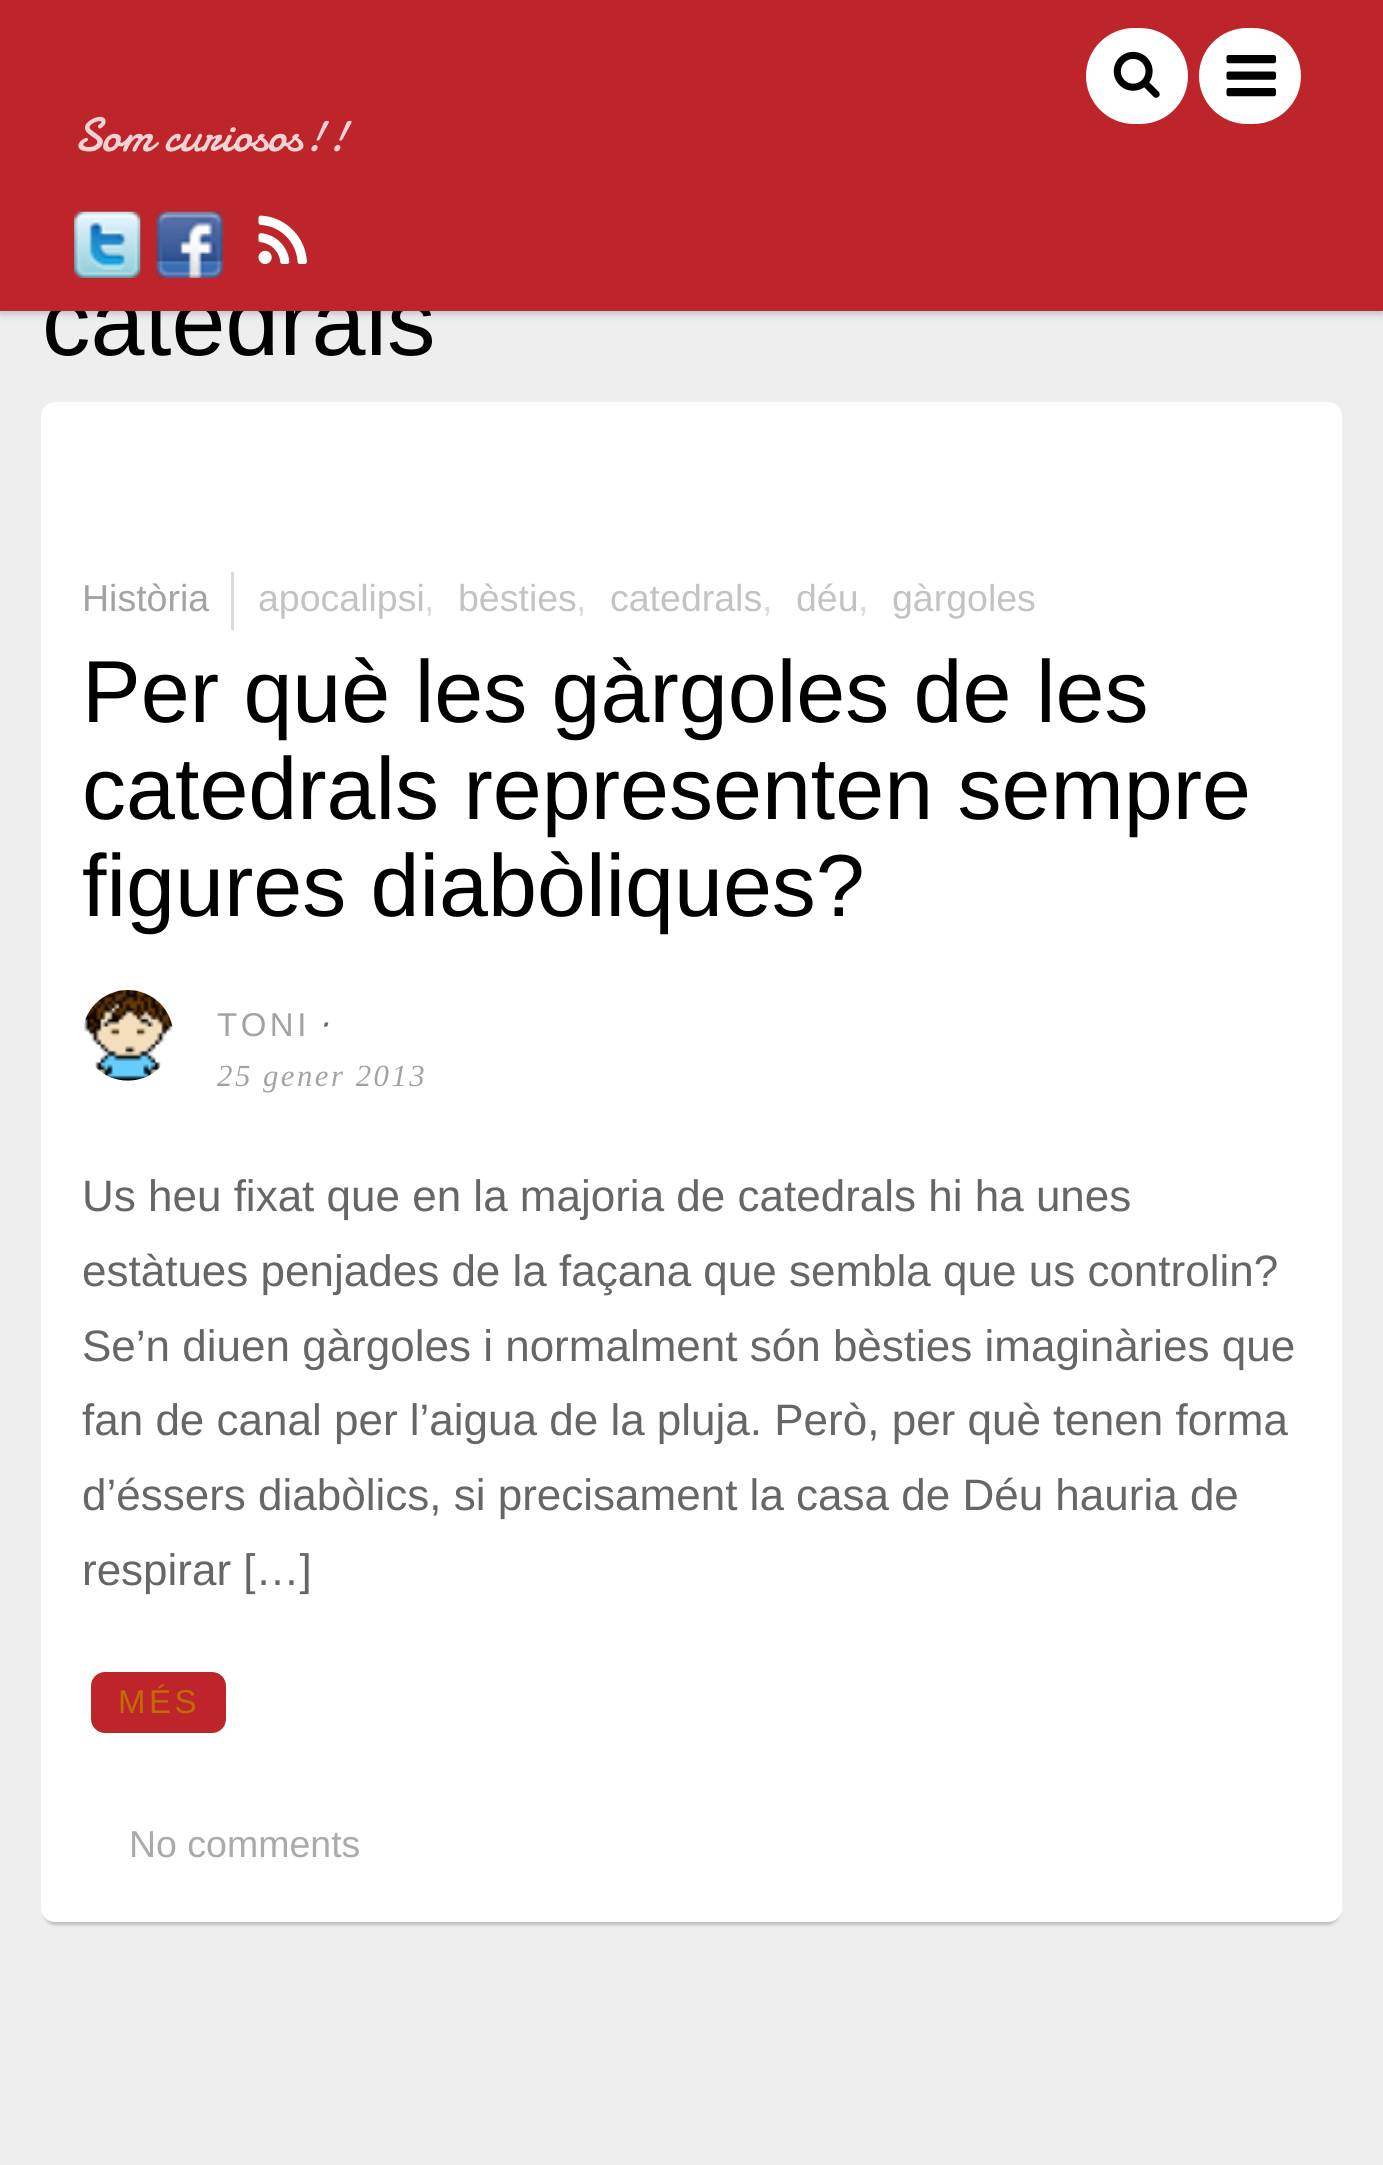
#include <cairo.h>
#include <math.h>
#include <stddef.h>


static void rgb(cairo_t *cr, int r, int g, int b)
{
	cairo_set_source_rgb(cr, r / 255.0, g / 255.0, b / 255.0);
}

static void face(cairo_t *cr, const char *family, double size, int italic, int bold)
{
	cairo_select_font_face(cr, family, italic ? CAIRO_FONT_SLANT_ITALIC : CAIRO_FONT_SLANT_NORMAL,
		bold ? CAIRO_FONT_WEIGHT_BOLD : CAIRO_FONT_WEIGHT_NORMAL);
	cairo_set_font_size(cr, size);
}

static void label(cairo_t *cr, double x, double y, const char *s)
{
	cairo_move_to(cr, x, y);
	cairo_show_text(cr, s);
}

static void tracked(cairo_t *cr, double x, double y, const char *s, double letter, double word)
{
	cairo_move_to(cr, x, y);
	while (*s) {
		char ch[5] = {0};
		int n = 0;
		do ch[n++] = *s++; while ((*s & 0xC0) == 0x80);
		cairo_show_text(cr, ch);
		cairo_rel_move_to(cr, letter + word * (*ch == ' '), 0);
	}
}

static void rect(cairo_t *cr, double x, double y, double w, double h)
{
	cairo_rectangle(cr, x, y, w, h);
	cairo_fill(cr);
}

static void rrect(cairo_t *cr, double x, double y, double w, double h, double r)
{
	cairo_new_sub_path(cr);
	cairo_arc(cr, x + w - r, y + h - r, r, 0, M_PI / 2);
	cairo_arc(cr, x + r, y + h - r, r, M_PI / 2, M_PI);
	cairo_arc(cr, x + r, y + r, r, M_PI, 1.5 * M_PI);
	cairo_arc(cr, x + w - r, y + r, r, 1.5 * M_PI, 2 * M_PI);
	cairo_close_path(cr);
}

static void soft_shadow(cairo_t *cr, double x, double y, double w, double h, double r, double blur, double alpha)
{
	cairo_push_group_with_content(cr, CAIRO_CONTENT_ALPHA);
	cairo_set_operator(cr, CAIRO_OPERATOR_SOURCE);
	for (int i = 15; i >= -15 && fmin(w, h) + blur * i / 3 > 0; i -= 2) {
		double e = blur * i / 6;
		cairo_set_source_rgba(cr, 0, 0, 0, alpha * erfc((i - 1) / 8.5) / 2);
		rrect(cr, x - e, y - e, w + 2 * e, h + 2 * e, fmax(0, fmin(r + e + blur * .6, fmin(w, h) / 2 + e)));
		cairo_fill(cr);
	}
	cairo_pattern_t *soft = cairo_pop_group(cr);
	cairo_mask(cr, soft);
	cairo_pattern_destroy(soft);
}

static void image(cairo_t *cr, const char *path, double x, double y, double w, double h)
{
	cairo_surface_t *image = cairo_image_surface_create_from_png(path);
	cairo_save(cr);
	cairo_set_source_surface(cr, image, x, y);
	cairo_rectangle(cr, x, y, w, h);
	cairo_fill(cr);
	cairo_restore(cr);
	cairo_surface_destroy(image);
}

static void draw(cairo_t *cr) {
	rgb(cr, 239, 238, 238);
	cairo_paint(cr);
	rgb(cr, 0, 0, 0);
	soft_shadow(cr, 0, 3, 1383, 311, 0, 4, 0.2);
	face(cr, "Liberation Sans", 97, 0, 0);
	rgb(cr, 0, 0, 0);
	label(cr, 42, 355, "catedrals");
	rgb(cr, 190, 37, 42);
	rect(cr, 0, 0, 1383, 311);
	rgb(cr, 255, 255, 255);
	rrect(cr, 1086, 28, 102, 96, 48);
	cairo_fill(cr);
	image(cr, "image0.png", 1113, 51, 47, 47);
	image(cr, "image1.png", 74, 211, 67, 67);
	image(cr, "image2.png", 156, 211, 68, 67);
	image(cr, "image3.png", 258, 215, 49, 49);
	rrect(cr, 1199, 28, 102, 96, 48);
	cairo_fill(cr);
	image(cr, "image4.png", 1226, 55, 50, 42);
	face(cr, "Damion", 48.5, 0, 0);
	rgb(cr, 242, 211, 212);
	label(cr, 74, 151, "Som curiosos!!");
	rgb(cr, 0, 0, 0);
	soft_shadow(cr, 44, 410, 1295, 1515, 11, 1.5, 0.2);
	rgb(cr, 255, 255, 255);
	rrect(cr, 41, 402, 1301, 1520, 14);
	cairo_fill(cr);
	face(cr, "Liberation Sans", 37.5, 0, 0);
	rgb(cr, 163, 163, 163);
	label(cr, 82, 611, "Història");
	rgb(cr, 218, 218, 218);
	rect(cr, 231, 572, 3, 58);
	rgb(cr, 195, 195, 195);
	label(cr, 258, 611, "apocalipsi");
	rgb(cr, 218, 218, 218);
	label(cr, 424, 611, ",");
	rgb(cr, 195, 195, 195);
	label(cr, 458, 611, "bèsties");
	rgb(cr, 218, 218, 218);
	label(cr, 576, 611, ",");
	rgb(cr, 195, 195, 195);
	label(cr, 610, 611, "catedrals");
	rgb(cr, 218, 218, 218);
	label(cr, 762, 611, ",");
	rgb(cr, 195, 195, 195);
	label(cr, 796, 611, "déu");
	rgb(cr, 218, 218, 218);
	label(cr, 858, 611, ",");
	rgb(cr, 195, 195, 195);
	label(cr, 892, 611, "gàrgoles");
	face(cr, "Liberation Sans", 88, 0, 0);
	rgb(cr, 0, 0, 0);
	label(cr, 82, 722, "Per què les gàrgoles de les");
	label(cr, 82, 819, "catedrals representen sempre");
	label(cr, 82, 916, "figures diabòliques?");
	image(cr, "image5.png", 84, 990, 89, 91);
	face(cr, "Liberation Sans", 33, 0, 0);
	rgb(cr, 163, 163, 163);
	tracked(cr, 217, 1036, "TONI", 3.5, 0);
	face(cr, "DejaVu Sans", 33, 1, 0);
	rgb(cr, 102, 102, 102);
	label(cr, 318, 1036, "⋅");
	face(cr, "Liberation Serif", 30.75, 1, 0);
	rgb(cr, 163, 163, 163);
	tracked(cr, 217, 1086, "25 gener 2013", 2.5, 0);
	face(cr, "Liberation Sans", 44, 0, 0);
	rgb(cr, 102, 102, 102);
	label(cr, 82, 1211, "Us heu fixat que en la majoria de catedrals hi ha unes");
	label(cr, 82, 1286, "estàtues penjades de la façana que sembla que us controlin?");
	label(cr, 82, 1361, "Se’n diuen gàrgoles i normalment són bèsties imaginàries que");
	label(cr, 82, 1435, "fan de canal per l’aigua de la pluja. Però, per què tenen forma");
	label(cr, 82, 1510, "d’éssers diabòlics, si precisament la casa de Déu hauria de");
	label(cr, 82, 1585, "respirar […]");
	rgb(cr, 190, 37, 42);
	rrect(cr, 91, 1672, 135, 61, 14);
	cairo_fill(cr);
	face(cr, "Liberation Sans", 33, 0, 0);
	rgb(cr, 193, 107, 5);
	tracked(cr, 118, 1713, "MÉS", 3.5, 0);
	face(cr, "Liberation Sans", 37.5, 0, 0);
	rgb(cr, 170, 170, 170);
	label(cr, 129, 1857, "No comments");
}

int main(void) {
	cairo_surface_t *surface = cairo_image_surface_create(CAIRO_FORMAT_RGB24, 1383, 2165);
	cairo_t *cr = cairo_create(surface);
	cairo_font_options_t *options = cairo_font_options_create();
	cairo_font_options_set_hint_metrics(options, CAIRO_HINT_METRICS_OFF);
	cairo_font_options_set_hint_style(options, CAIRO_HINT_STYLE_NONE);
	cairo_set_font_options(cr, options);
	cairo_set_miter_limit(cr, 4);
	draw(cr);
	cairo_surface_write_to_png(surface, "render.png");
	cairo_font_options_destroy(options);
	cairo_destroy(cr);
	cairo_surface_destroy(surface);
	return 0;
}
